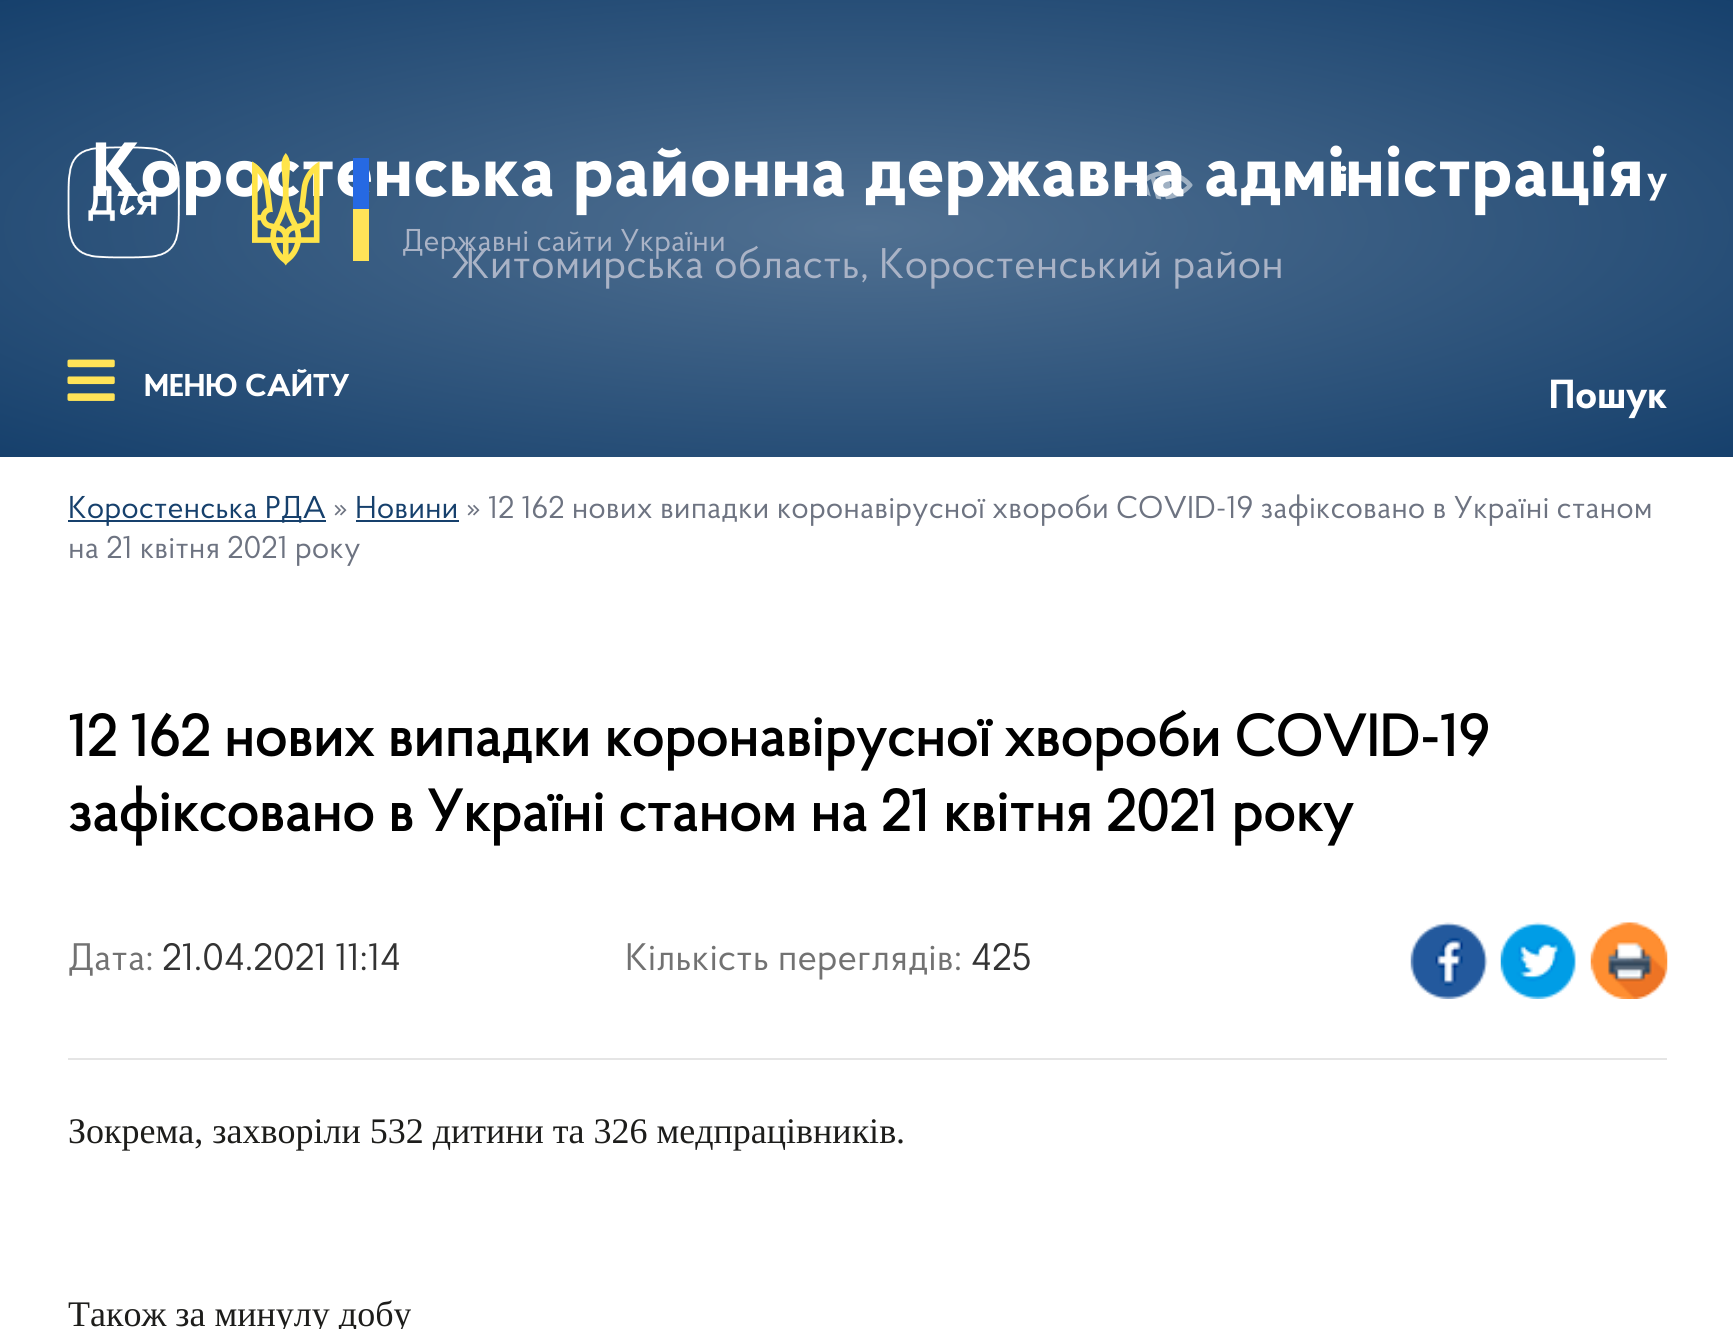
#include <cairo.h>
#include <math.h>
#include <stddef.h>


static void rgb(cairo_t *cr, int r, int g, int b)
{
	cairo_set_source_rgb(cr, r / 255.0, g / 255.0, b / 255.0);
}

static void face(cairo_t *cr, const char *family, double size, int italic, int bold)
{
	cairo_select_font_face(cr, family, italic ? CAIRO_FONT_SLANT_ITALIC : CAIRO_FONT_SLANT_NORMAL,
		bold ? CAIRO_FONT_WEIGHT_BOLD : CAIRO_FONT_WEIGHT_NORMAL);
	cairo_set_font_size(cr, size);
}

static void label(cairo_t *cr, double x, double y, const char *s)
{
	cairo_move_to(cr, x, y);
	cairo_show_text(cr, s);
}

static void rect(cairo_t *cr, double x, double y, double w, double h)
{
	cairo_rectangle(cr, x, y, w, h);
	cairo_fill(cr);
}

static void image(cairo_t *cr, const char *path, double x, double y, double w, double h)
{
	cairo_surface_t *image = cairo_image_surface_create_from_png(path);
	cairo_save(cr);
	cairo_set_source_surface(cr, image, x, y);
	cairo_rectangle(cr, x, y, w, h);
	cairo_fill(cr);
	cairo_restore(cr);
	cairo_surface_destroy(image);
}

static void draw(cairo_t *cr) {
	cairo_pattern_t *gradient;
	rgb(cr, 255, 255, 255);
	cairo_paint(cr);
	gradient = cairo_pattern_create_radial(0, 0, 0, 0, 0, 1);
	cairo_pattern_set_matrix(gradient, &(cairo_matrix_t){1.0 / 1227, 0, 0, 1.0 / 323, -1.0 * 867 / 1227, -1.0 * 228 / 323});
	cairo_pattern_add_color_stop_rgba(gradient, 0, 0.314, 0.439, 0.569, 1);
	cairo_pattern_add_color_stop_rgba(gradient, 1, 0.086, 0.251, 0.424, 1);
	cairo_set_source(cr, gradient);
	cairo_pattern_destroy(gradient);
	rect(cr, 0, 0, 1733, 457);
	face(cr, "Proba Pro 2", 76.5, 0, 1);
	rgb(cr, 255, 255, 255);
	label(cr, 92, 196, "Коростенська районна державна адміністрація");
	face(cr, "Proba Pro", 42.75, 0, 0);
	rgb(cr, 170, 179, 198);
	label(cr, 451, 278, "Житомирська область, Коростенський район");
	image(cr, "image0.png", 1136, 171, 57, 29);
	face(cr, "Proba Pro 2", 38.25, 0, 1);
	rgb(cr, 255, 255, 255);
	label(cr, 1339, 191, "і");
	label(cr, 1647, 191, "у");
	image(cr, "image1.png", 67, 146, 113, 113);
	image(cr, "image2.png", 252, 153, 68, 113);
	rgb(cr, 38, 105, 227);
	rect(cr, 353, 158, 16, 51);
	rgb(cr, 255, 227, 88);
	rect(cr, 353, 209, 16, 52);
	face(cr, "Proba Pro", 31.5, 0, 0);
	rgb(cr, 170, 179, 198);
	label(cr, 402, 251, "Державні сайти України");
	image(cr, "image3.png", 67, 359, 48, 42);
	face(cr, "Proba Pro 2", 31.5, 0, 1);
	rgb(cr, 255, 255, 255);
	label(cr, 144, 396, "МЕНЮ САЙТУ");
	face(cr, "Proba Pro 2", 40.5, 0, 1);
	label(cr, 1549, 408, "Пошук");
	rgb(cr, 22, 64, 108);
	rect(cr, 68, 520, 258, 2);
	face(cr, "Proba Pro", 31.5, 0, 0);
	label(cr, 68, 518, "Коростенська РДА");
	rgb(cr, 109, 115, 129);
	label(cr, 333, 518, "»");
	rgb(cr, 22, 64, 108);
	label(cr, 355, 518, "Новини");
	rect(cr, 356, 520, 103, 2);
	rgb(cr, 109, 115, 129);
	label(cr, 466, 518, "» 12 162 нових випадки коронавірусної хвороби COVID-19 зафіксовано в Україні станом");
	label(cr, 68, 558, "на 21 квітня 2021 року");
	face(cr, "Proba Pro", 58.5, 0, 1);
	rgb(cr, 0, 0, 0);
	label(cr, 68, 756, "12 162 нових випадки коронавірусної хвороби COVID-19");
	label(cr, 68, 831, "зафіксовано в Україні станом на 21 квітня 2021 року");
	face(cr, "Proba Pro", 38.25, 0, 0);
	rgb(cr, 114, 114, 114);
	label(cr, 68, 970, "Дата:");
	rgb(cr, 51, 51, 51);
	label(cr, 162, 970, "21.04.2021 11:14");
	rgb(cr, 114, 114, 114);
	label(cr, 625, 970, "Кількість переглядів:");
	rgb(cr, 51, 51, 51);
	label(cr, 971, 970, "425");
	image(cr, "image4.png", 1410, 922, 78, 77);
	image(cr, "image5.png", 1500, 922, 76, 77);
	image(cr, "image6.png", 1590, 922, 78, 77);
	rgb(cr, 229, 229, 229);
	rect(cr, 68, 1058, 1599, 2);
	face(cr, "Liberation Serif", 36, 0, 0);
	rgb(cr, 29, 29, 27);
	label(cr, 68, 1143, "Зокрема, захворіли 532 дитини та 326 медпрацівників.");
	label(cr, 68, 1326, "Також за минулу добу");
}

int main(void) {
	cairo_surface_t *surface = cairo_image_surface_create(CAIRO_FORMAT_RGB24, 1733, 1329);
	cairo_t *cr = cairo_create(surface);
	cairo_font_options_t *options = cairo_font_options_create();
	cairo_font_options_set_hint_metrics(options, CAIRO_HINT_METRICS_OFF);
	cairo_font_options_set_hint_style(options, CAIRO_HINT_STYLE_NONE);
	cairo_set_font_options(cr, options);
	cairo_set_miter_limit(cr, 4);
	draw(cr);
	cairo_surface_write_to_png(surface, "render.png");
	cairo_font_options_destroy(options);
	cairo_destroy(cr);
	cairo_surface_destroy(surface);
	return 0;
}
